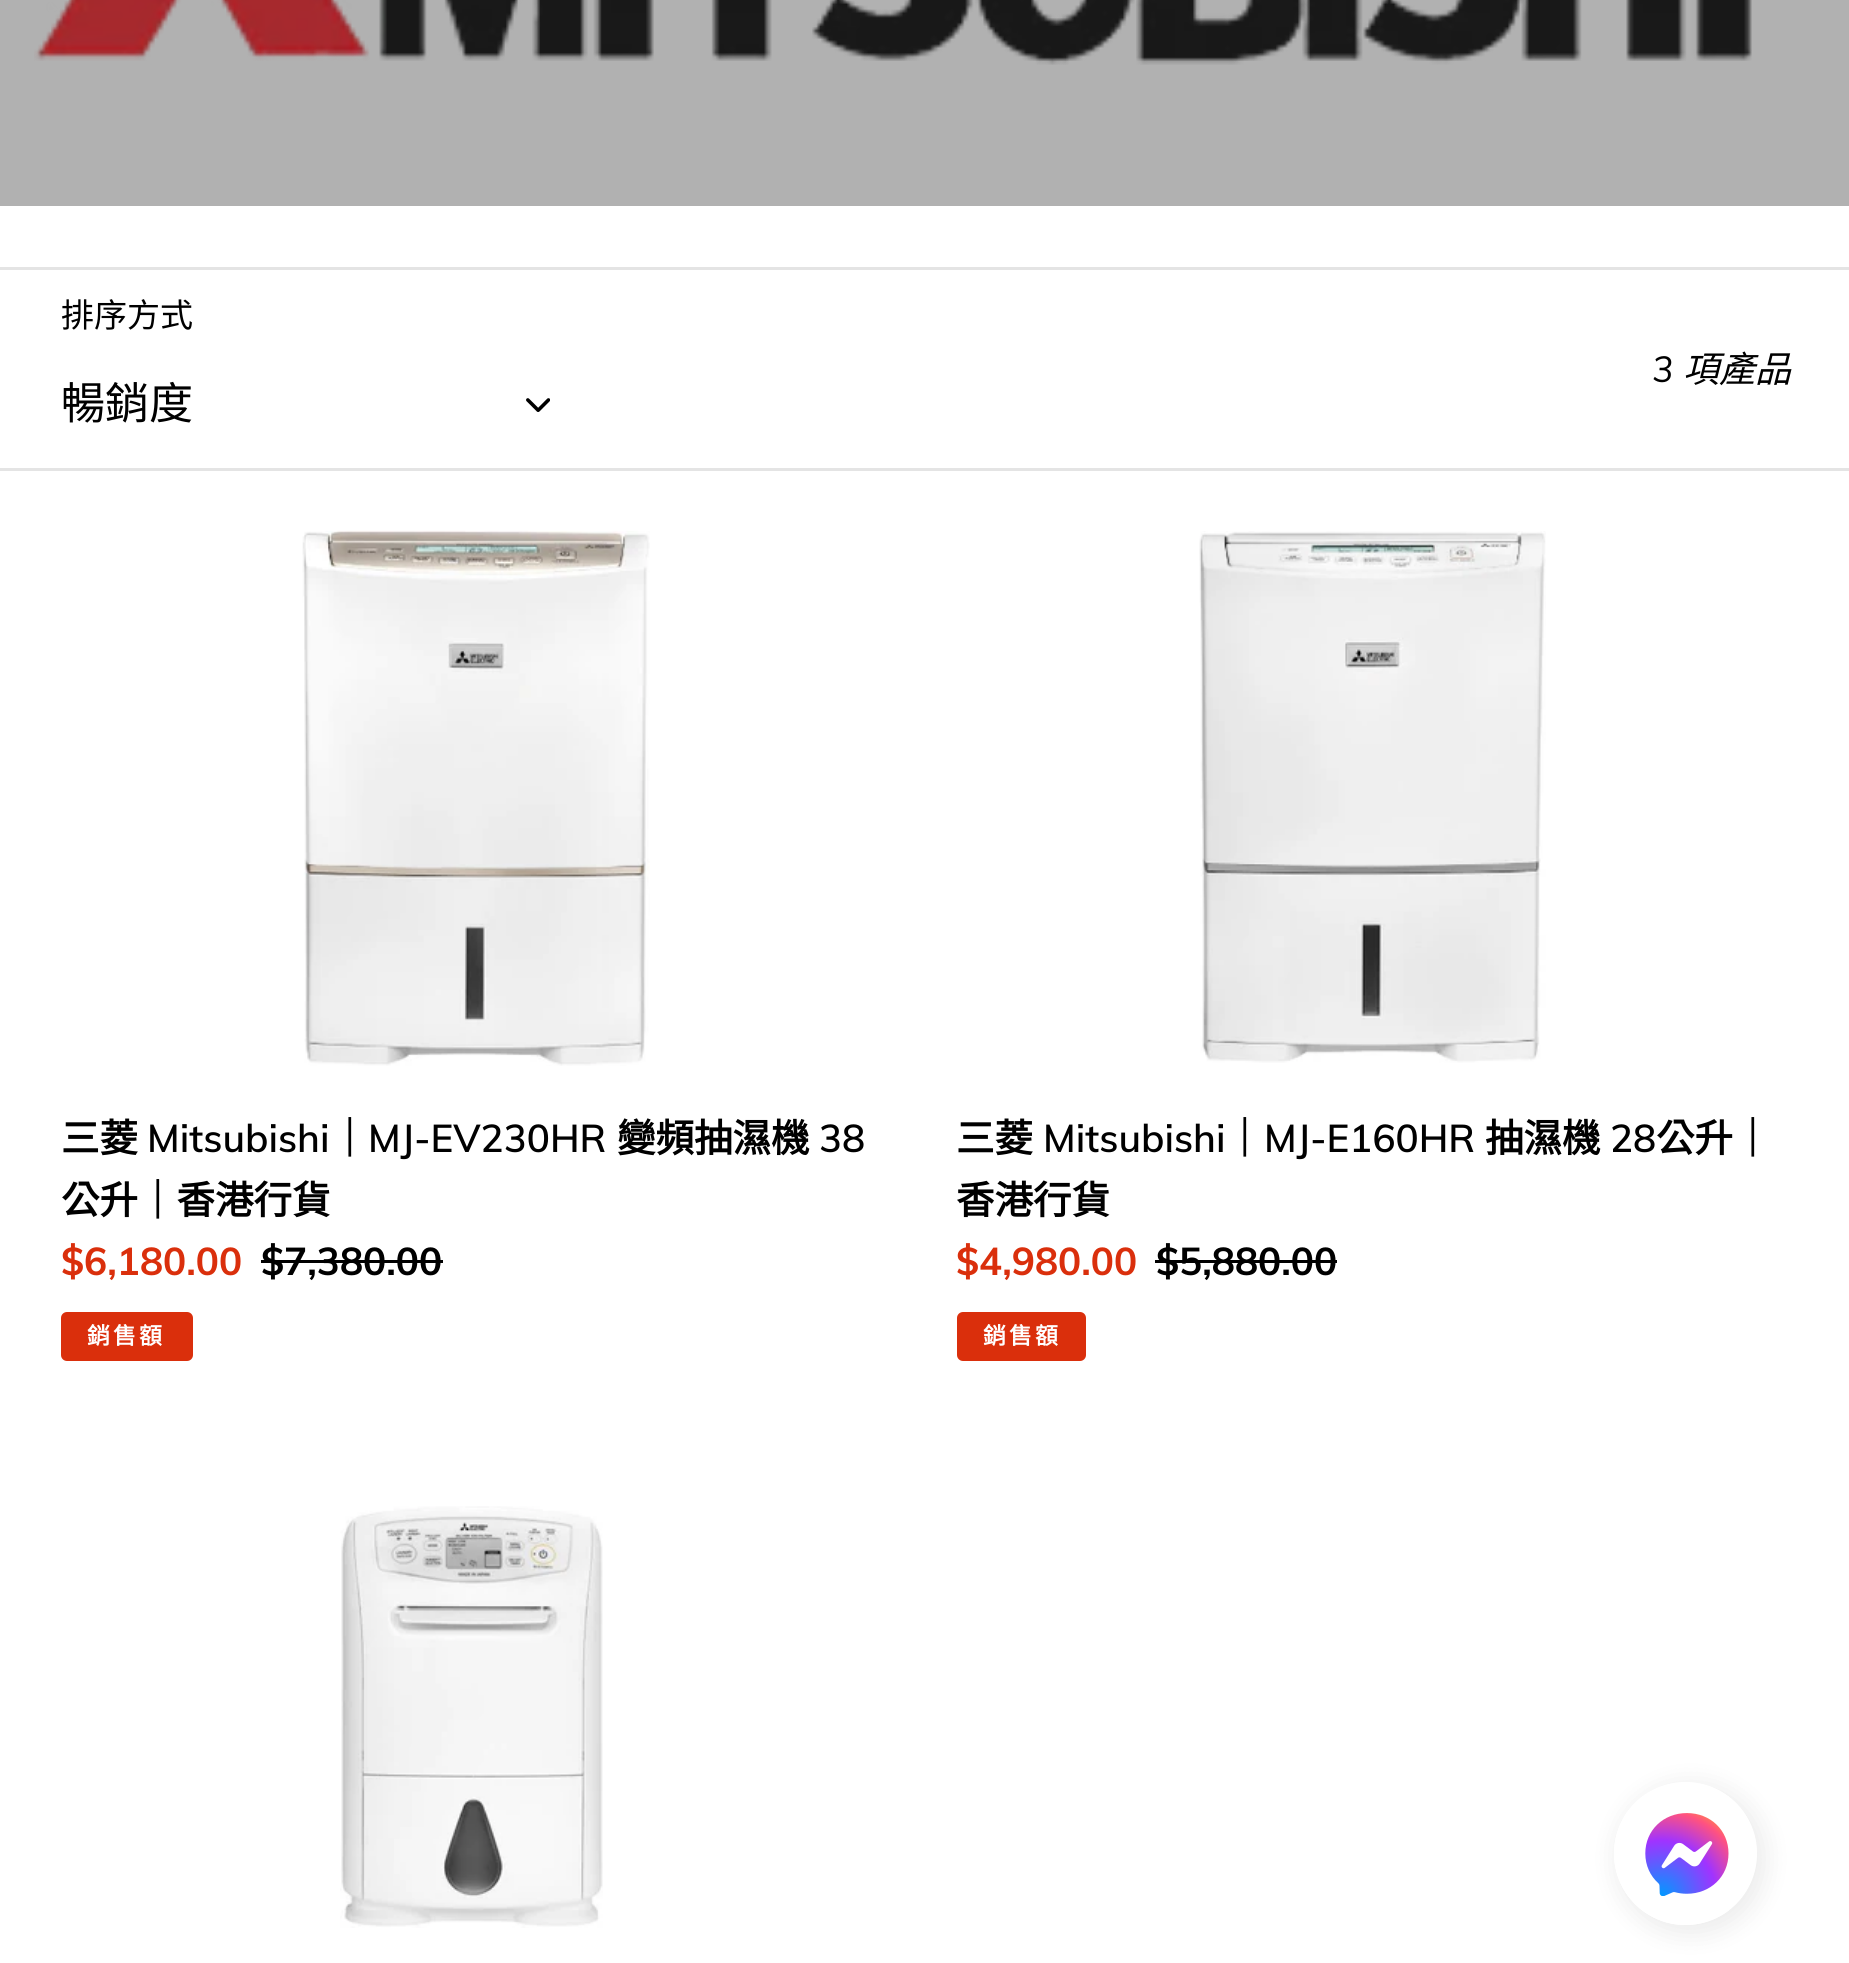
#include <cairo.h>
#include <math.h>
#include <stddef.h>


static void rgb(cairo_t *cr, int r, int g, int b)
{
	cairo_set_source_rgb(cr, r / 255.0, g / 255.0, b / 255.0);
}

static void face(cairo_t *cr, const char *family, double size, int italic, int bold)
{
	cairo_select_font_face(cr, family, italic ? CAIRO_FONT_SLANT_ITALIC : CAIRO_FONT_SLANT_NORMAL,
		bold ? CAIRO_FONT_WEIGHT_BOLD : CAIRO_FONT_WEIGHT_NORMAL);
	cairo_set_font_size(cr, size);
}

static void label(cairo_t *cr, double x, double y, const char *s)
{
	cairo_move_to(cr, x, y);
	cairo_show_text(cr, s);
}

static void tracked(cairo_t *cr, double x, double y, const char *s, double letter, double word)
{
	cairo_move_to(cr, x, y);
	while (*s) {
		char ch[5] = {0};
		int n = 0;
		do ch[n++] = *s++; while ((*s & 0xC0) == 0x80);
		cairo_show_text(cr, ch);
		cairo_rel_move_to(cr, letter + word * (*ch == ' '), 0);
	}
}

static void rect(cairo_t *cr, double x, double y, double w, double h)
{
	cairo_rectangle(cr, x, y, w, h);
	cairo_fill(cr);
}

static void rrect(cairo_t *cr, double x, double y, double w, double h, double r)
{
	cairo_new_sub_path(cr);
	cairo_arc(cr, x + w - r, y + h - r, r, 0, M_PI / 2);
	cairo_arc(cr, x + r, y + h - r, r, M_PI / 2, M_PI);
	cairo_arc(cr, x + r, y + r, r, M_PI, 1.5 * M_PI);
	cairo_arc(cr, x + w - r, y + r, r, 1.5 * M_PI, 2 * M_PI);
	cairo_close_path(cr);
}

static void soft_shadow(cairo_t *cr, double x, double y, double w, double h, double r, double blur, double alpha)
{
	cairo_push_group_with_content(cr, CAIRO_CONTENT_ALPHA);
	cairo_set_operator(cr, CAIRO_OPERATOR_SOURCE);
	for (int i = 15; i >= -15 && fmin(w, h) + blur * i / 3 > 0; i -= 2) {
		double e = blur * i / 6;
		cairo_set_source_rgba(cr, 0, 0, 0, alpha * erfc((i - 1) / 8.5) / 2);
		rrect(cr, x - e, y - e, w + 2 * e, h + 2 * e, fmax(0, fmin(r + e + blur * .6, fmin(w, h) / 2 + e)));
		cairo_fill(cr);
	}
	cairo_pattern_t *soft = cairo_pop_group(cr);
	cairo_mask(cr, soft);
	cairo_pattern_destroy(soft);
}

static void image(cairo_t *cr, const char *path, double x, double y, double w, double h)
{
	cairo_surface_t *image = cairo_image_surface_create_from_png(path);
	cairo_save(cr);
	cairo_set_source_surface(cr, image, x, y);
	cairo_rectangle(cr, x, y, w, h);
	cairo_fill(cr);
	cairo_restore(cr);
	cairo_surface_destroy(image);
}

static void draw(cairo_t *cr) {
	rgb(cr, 255, 255, 255);
	cairo_paint(cr);
	rgb(cr, 177, 177, 177);
	rect(cr, 0, 0, 1849, 206);
	image(cr, "image0.png", 34, 0, 1718, 65);
	rgb(cr, 228, 228, 228);
	rect(cr, 0, 267, 1849, 3);
	rect(cr, 0, 468, 1849, 3);
	face(cr, "Noto Sans CJK TC", 33, 0, 0);
	rgb(cr, 0, 0, 0);
	label(cr, 61, 327, "排序方式");
	face(cr, "Noto Sans CJK TC", 44, 0, 0);
	label(cr, 61, 419, "暢銷度");
	image(cr, "image1.png", 526, 398, 24, 14);
	face(cr, "Muli", 36, 1, 0);
	label(cr, 1652, 382, "3");
	face(cr, "Noto Sans CJK TC", 36, 1, 0);
	label(cr, 1683, 382, "項產品");
	image(cr, "image2.png", 302, 530, 348, 536);
	face(cr, "Noto Sans CJK TC", 38.5, 0, 1);
	label(cr, 61, 1152, "三菱");
	face(cr, "Muli SemiBold", 38.5, 0, 0);
	label(cr, 147, 1152, "Mitsubishi");
	face(cr, "Noto Sans CJK TC", 38.5, 0, 1);
	label(cr, 330, 1152, "｜");
	face(cr, "Muli SemiBold", 38.5, 0, 0);
	label(cr, 368, 1152, "MJ-EV230HR");
	face(cr, "Noto Sans CJK TC", 38.5, 0, 1);
	label(cr, 617, 1152, "變頻抽濕機");
	face(cr, "Muli SemiBold", 38.5, 0, 0);
	label(cr, 819, 1152, "38");
	face(cr, "Noto Sans CJK TC", 38.5, 0, 1);
	label(cr, 61, 1214, "公升｜香港行貨");
	face(cr, "Muli", 38.5, 0, 1);
	rgb(cr, 218, 47, 12);
	label(cr, 61, 1275, "$6,180.00");
	rgb(cr, 0, 0, 0);
	label(cr, 261, 1275, "$7,380.00");
	rect(cr, 261, 1260, 182, 3);
	rgb(cr, 218, 47, 12);
	rrect(cr, 62.5, 1313.5, 129, 46, 4.5);
	cairo_fill_preserve(cr);
	cairo_set_line_width(cr, 3);
	cairo_stroke(cr);
	face(cr, "Noto Sans CJK TC", 23, 0, 1);
	rgb(cr, 255, 255, 255);
	tracked(cr, 87, 1344, "銷售額", 3, 0);
	image(cr, "image3.png", 1199, 531, 347, 532);
	face(cr, "Noto Sans CJK TC", 38.5, 0, 1);
	rgb(cr, 0, 0, 0);
	label(cr, 956, 1152, "三菱");
	face(cr, "Muli SemiBold", 38.5, 0, 0);
	label(cr, 1043, 1152, "Mitsubishi");
	face(cr, "Noto Sans CJK TC", 38.5, 0, 1);
	label(cr, 1225, 1152, "｜");
	face(cr, "Muli SemiBold", 38.5, 0, 0);
	label(cr, 1264, 1152, "MJ-E160HR");
	face(cr, "Noto Sans CJK TC", 38.5, 0, 1);
	label(cr, 1485, 1152, "抽濕機");
	face(cr, "Muli SemiBold", 38.5, 0, 0);
	label(cr, 1610, 1152, "28");
	face(cr, "Noto Sans CJK TC", 38.5, 0, 1);
	label(cr, 1656, 1152, "公升｜");
	label(cr, 956, 1214, "香港行貨");
	face(cr, "Muli", 38.5, 0, 1);
	rgb(cr, 218, 47, 12);
	label(cr, 956, 1275, "$4,980.00");
	rgb(cr, 0, 0, 0);
	label(cr, 1156, 1275, "$5,880.00");
	rect(cr, 1155, 1260, 182, 3);
	rgb(cr, 218, 47, 12);
	rrect(cr, 958.5, 1313.5, 126, 46, 4.5);
	cairo_fill_preserve(cr);
	cairo_stroke(cr);
	face(cr, "Noto Sans CJK TC", 23, 0, 1);
	rgb(cr, 255, 255, 255);
	tracked(cr, 983, 1344, "銷售額", 3, 0);
	image(cr, "image4.png", 340, 1506, 263, 422);
	cairo_save(cr);
	cairo_set_fill_rule(cr, CAIRO_FILL_RULE_EVEN_ODD);
	cairo_new_path(cr);
	cairo_move_to(cr, 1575, 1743);
	cairo_line_to(cr, 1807, 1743);
	cairo_line_to(cr, 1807, 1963);
	cairo_line_to(cr, 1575, 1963);
	cairo_close_path(cr);
	cairo_move_to(cr, 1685.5, 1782);
	cairo_curve_to(cr, 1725, 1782, 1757, 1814, 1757, 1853.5);
	cairo_curve_to(cr, 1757, 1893, 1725, 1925, 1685.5, 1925);
	cairo_curve_to(cr, 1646, 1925, 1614, 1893, 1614, 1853.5);
	cairo_curve_to(cr, 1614, 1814, 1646, 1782, 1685.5, 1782);
	cairo_close_path(cr);
	cairo_clip(cr);
	rgb(cr, 0, 0, 0);
	soft_shadow(cr, 1614, 1782, 154, 154, 77, 12.5, 0.07);
	cairo_restore(cr);
	image(cr, "image5.png", 1614, 1796, 115, 129);
}

int main(void) {
	cairo_surface_t *surface = cairo_image_surface_create(CAIRO_FORMAT_RGB24, 1849, 1963);
	cairo_t *cr = cairo_create(surface);
	cairo_font_options_t *options = cairo_font_options_create();
	cairo_font_options_set_hint_metrics(options, CAIRO_HINT_METRICS_OFF);
	cairo_font_options_set_hint_style(options, CAIRO_HINT_STYLE_NONE);
	cairo_set_font_options(cr, options);
	cairo_set_miter_limit(cr, 4);
	draw(cr);
	cairo_surface_write_to_png(surface, "render.png");
	cairo_font_options_destroy(options);
	cairo_destroy(cr);
	cairo_surface_destroy(surface);
	return 0;
}
